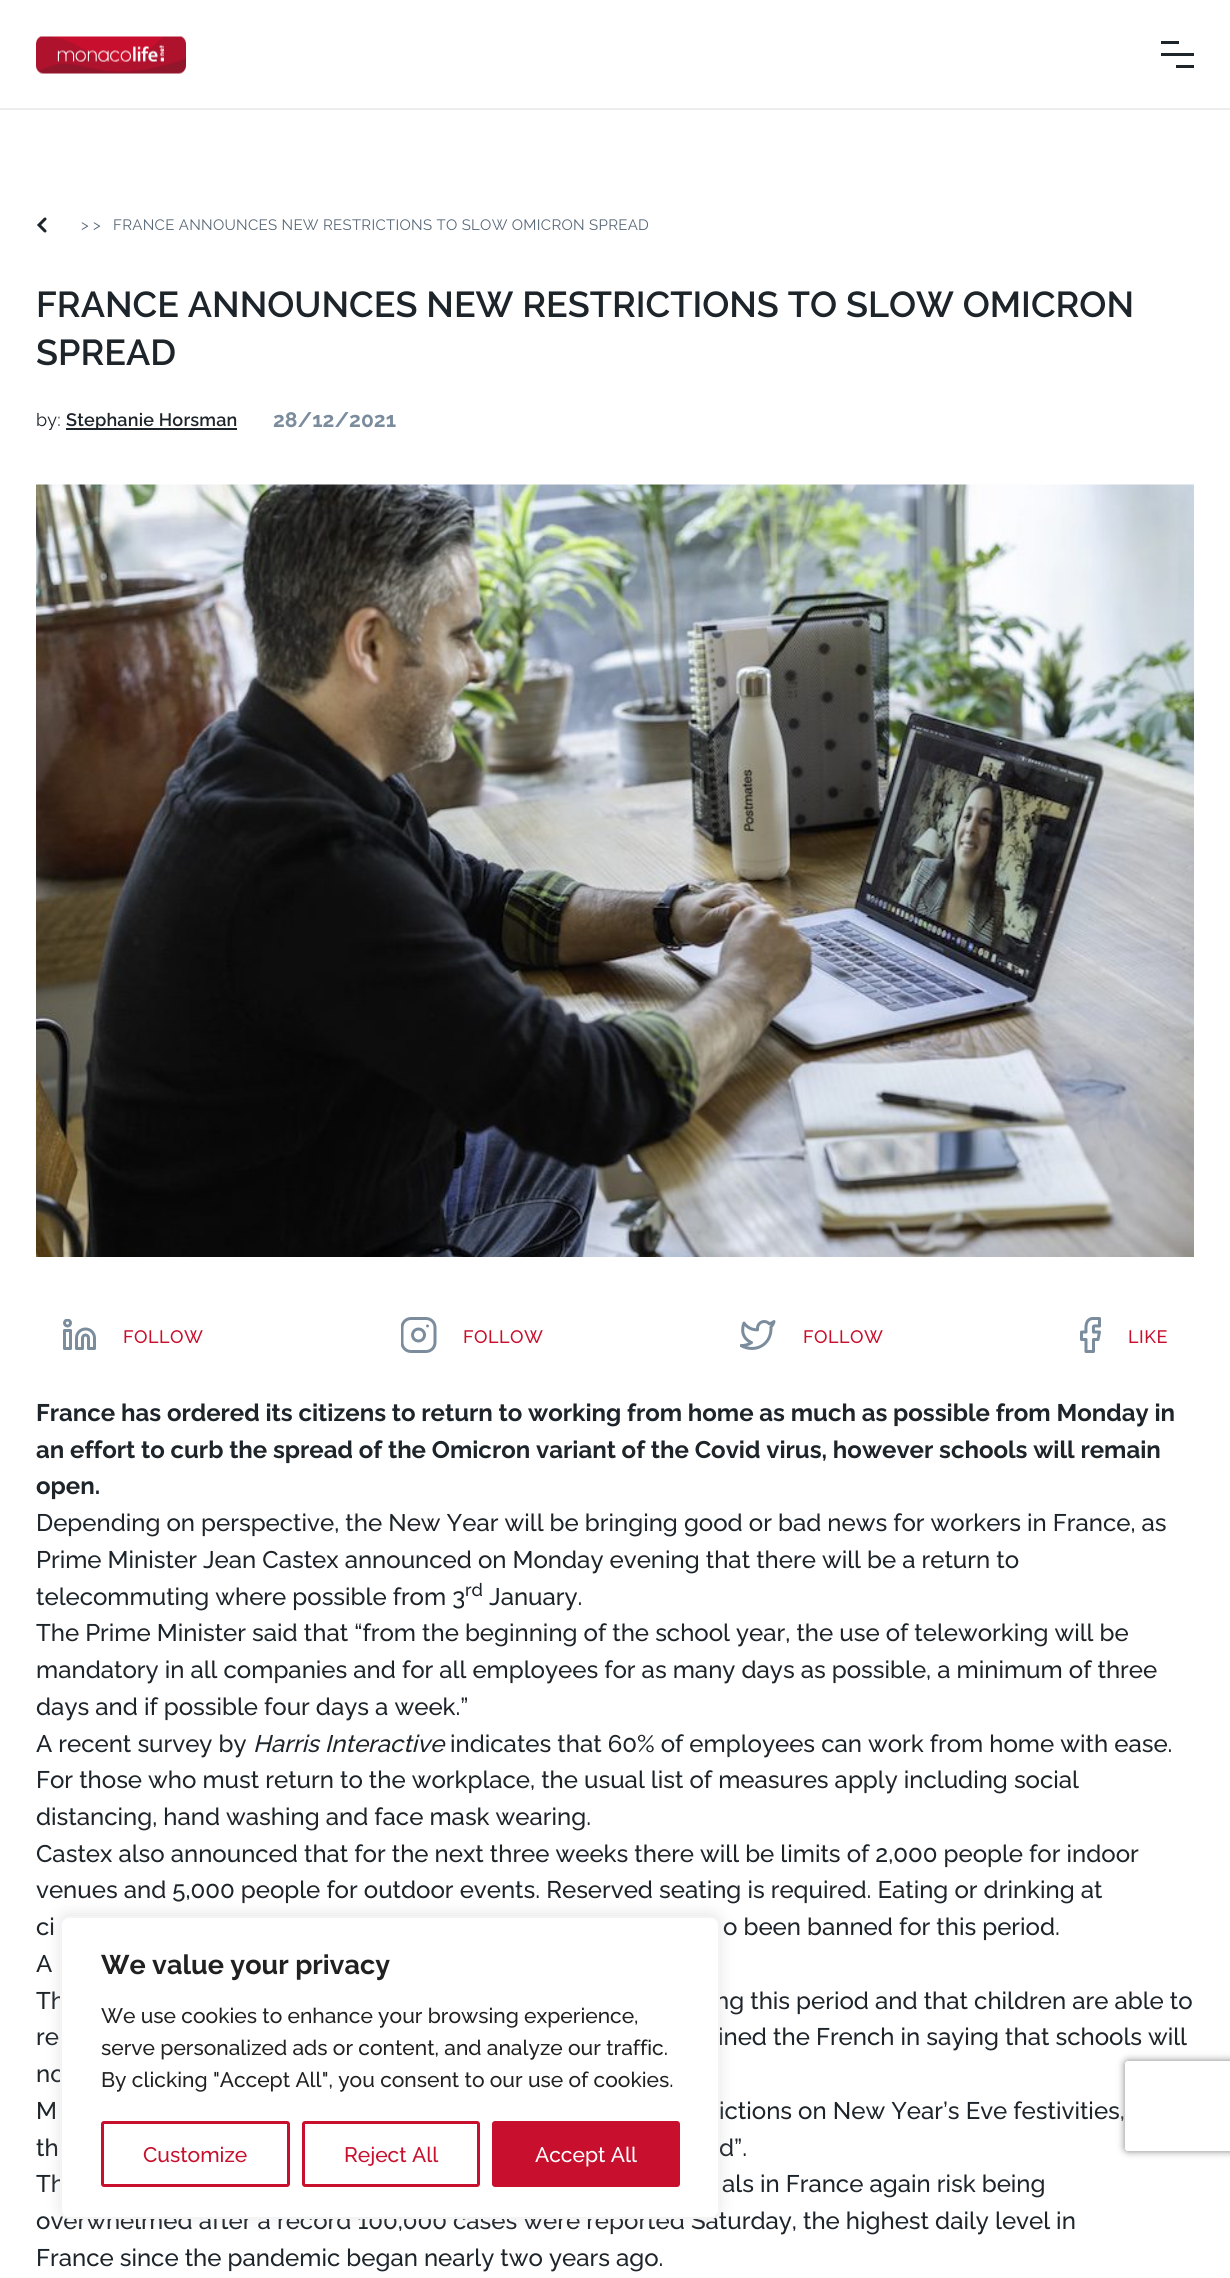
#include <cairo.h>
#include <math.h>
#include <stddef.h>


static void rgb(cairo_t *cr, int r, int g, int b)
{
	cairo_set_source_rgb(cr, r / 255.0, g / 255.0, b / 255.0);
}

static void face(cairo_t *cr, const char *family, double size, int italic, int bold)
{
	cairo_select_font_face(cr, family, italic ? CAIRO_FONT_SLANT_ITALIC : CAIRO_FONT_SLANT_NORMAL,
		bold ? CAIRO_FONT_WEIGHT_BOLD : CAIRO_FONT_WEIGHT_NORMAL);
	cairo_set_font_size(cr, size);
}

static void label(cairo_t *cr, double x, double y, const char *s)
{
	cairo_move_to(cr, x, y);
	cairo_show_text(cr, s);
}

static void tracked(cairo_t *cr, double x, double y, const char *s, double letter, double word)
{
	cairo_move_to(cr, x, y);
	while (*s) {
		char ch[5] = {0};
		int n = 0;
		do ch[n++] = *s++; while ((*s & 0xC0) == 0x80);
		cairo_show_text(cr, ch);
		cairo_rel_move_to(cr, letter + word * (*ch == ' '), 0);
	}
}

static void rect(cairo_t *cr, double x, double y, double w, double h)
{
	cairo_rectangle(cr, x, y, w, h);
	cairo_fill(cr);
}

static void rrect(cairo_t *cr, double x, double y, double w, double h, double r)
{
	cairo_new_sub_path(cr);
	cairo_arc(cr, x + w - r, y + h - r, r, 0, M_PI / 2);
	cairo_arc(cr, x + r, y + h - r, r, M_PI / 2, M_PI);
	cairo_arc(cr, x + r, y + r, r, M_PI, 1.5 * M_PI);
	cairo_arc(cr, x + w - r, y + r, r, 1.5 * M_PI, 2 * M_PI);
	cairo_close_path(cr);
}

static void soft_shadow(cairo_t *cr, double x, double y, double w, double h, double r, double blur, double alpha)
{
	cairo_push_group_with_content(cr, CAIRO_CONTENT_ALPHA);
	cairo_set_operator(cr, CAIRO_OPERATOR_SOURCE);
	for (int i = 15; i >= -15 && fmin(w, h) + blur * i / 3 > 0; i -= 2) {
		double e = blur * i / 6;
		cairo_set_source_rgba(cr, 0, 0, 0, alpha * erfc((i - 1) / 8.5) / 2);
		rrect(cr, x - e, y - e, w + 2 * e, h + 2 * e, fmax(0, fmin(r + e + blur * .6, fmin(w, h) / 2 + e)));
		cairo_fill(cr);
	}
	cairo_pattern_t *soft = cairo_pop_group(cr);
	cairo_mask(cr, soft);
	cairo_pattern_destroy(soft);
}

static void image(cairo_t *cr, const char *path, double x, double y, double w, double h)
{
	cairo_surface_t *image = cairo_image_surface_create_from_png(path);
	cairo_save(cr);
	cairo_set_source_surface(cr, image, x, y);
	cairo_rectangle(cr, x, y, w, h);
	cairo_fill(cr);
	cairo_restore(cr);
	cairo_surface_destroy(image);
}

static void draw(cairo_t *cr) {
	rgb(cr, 255, 255, 255);
	cairo_paint(cr);
	rgb(cr, 237, 237, 237);
	rect(cr, 0, 108, 1230, 2);
	image(cr, "image0.png", 36, 36, 150, 38);
	rgb(cr, 29, 36, 42);
	rect(cr, 1161, 41, 18, 3);
	rect(cr, 1161, 53, 33, 3);
	rect(cr, 1176, 65, 18, 3);
	cairo_new_path(cr);
	cairo_move_to(cr, 45, 231);
	cairo_line_to(cr, 39, 225);
	cairo_line_to(cr, 45, 219);
	cairo_set_line_width(cr, 3);
	cairo_set_line_cap(cr, CAIRO_LINE_CAP_ROUND);
	cairo_stroke(cr);
	face(cr, "Raleway", 15, 0, 0);
	rgb(cr, 89, 105, 120);
	tracked(cr, 81, 230, "> >", 0.3, 0);
	tracked(cr, 113, 230, "FRANCE ANNOUNCES NEW RESTRICTIONS TO SLOW OMICRON SPREAD", 0.3, 0);
	face(cr, "Raleway SemiBold", 36, 0, 0);
	rgb(cr, 29, 36, 42);
	label(cr, 36, 317, "FRANCE ANNOUNCES NEW RESTRICTIONS TO SLOW OMICRON");
	label(cr, 36, 365, "SPREAD");
	face(cr, "Raleway", 18, 0, 0);
	tracked(cr, 36, 426, "by:", 0.2, 0);
	rect(cr, 66, 428, 171, 2);
	face(cr, "Raleway SemiBold", 18, 0, 0);
	tracked(cr, 66, 426, "Stephanie Horsman", 0.2, 0);
	face(cr, "Raleway", 21, 0, 1);
	rgb(cr, 123, 140, 157);
	label(cr, 273, 427, "28/12/2021");
	image(cr, "image1.png", 36, 484, 1158, 773);
	image(cr, "image2.png", 63, 1319, 33, 31);
	face(cr, "Raleway Medium", 18, 0, 0);
	rgb(cr, 200, 16, 46);
	tracked(cr, 123, 1343, "FOLLOW", 0.5, 0);
	image(cr, "image3.png", 401, 1317, 36, 36);
	tracked(cr, 463, 1343, "FOLLOW", 0.5, 0);
	image(cr, "image4.png", 740, 1320, 36, 30);
	tracked(cr, 803, 1343, "FOLLOW", 0.5, 0);
	cairo_new_path(cr);
	cairo_move_to(cr, 1099.5, 1318.5);
	cairo_line_to(cr, 1092, 1318.5);
	cairo_curve_to(cr, 1085, 1320, 1086, 1327, 1086, 1332);
	cairo_line_to(cr, 1081.5, 1332);
	cairo_line_to(cr, 1081.5, 1339.5);
	cairo_line_to(cr, 1086, 1339.5);
	cairo_line_to(cr, 1086, 1351.5);
	cairo_line_to(cr, 1093.5, 1351.5);
	cairo_line_to(cr, 1093.5, 1339.5);
	cairo_line_to(cr, 1098, 1339.5);
	cairo_line_to(cr, 1099.5, 1332);
	cairo_line_to(cr, 1093.5, 1332);
	cairo_curve_to(cr, 1093.5, 1324.5, 1092, 1326, 1099.5, 1326);
	cairo_close_path(cr);
	rgb(cr, 123, 140, 157);
	cairo_set_line_join(cr, CAIRO_LINE_JOIN_ROUND);
	cairo_stroke(cr);
	rgb(cr, 200, 16, 46);
	tracked(cr, 1128, 1343, "LIKE", 0.5, 0);
	face(cr, "Raleway", 24, 0, 1);
	rgb(cr, 29, 36, 42);
	label(cr, 36, 1421, "France has ordered its citizens to return to working from home as much as possible from Monday in");
	label(cr, 36, 1458, "an effort to curb the spread of the Omicron variant of the Covid virus, however schools will remain");
	label(cr, 36, 1494, "open.");
	face(cr, "Raleway Medium", 24, 0, 0);
	label(cr, 36, 1531, "Depending on perspective, the New Year will be bringing good or bad news for workers in France, as");
	label(cr, 36, 1568, "Prime Minister Jean Castex announced on Monday evening that there will be a return to");
	label(cr, 36, 1605, "telecommuting where possible from 3");
	face(cr, "Raleway Medium", 18, 0, 0);
	label(cr, 465, 1596, "rd");
	face(cr, "Raleway Medium", 24, 0, 0);
	label(cr, 489, 1605, "January.");
	label(cr, 36, 1641, "The Prime Minister said that “from the beginning of the school year, the use of teleworking will be");
	label(cr, 36, 1678, "mandatory in all companies and for all employees for as many days as possible, a minimum of three");
	label(cr, 36, 1715, "days and if possible four days a week.”");
	label(cr, 36, 1752, "A recent survey by");
	face(cr, "Raleway Medium", 24, 1, 0);
	label(cr, 253, 1752, "Harris Interactive");
	face(cr, "Raleway Medium", 24, 0, 0);
	label(cr, 450, 1752, "indicates that 60% of employees can work from home with ease.");
	label(cr, 36, 1788, "For those who must return to the workplace, the usual list of measures apply including social");
	label(cr, 36, 1825, "distancing, hand washing and face mask wearing.");
	label(cr, 36, 1862, "Castex also announced that for the next three weeks there will be limits of 2,000 people for indoor");
	label(cr, 36, 1898, "venues and 5,000 people for outdoor events. Reserved seating is required. Eating or drinking at");
	label(cr, 36, 1935, "ci");
	label(cr, 723, 1935, "o been banned for this period.");
	label(cr, 36, 1972, "A");
	label(cr, 36, 2009, "Th");
	label(cr, 715, 2009, "ng this period and that children are able to");
	label(cr, 36, 2045, "re");
	label(cr, 718, 2045, "ined the French in saying that schools will");
	label(cr, 36, 2082, "no");
	label(cr, 36, 2119, "M");
	label(cr, 719, 2119, "ictions on New Year’s Eve festivities,");
	label(cr, 36, 2156, "th");
	label(cr, 719, 2156, "d”.");
	label(cr, 36, 2192, "Th");
	label(cr, 722, 2192, "als in France again risk being");
	label(cr, 36, 2229, "overwhelmed after a record 100,000 cases were reported Saturday, the highest daily level in");
	label(cr, 36, 2266, "France since the pandemic began nearly two years ago.");
	rgb(cr, 172, 171, 171);
	soft_shadow(cr, 60, 1914, 660, 303, 9, 7.5, 0.3);
	rgb(cr, 255, 255, 255);
	rrect(cr, 61, 1917, 658, 301, 8);
	cairo_fill_preserve(cr);
	rgb(cr, 244, 244, 244);
	cairo_set_line_width(cr, 2);
	cairo_set_line_cap(cr, CAIRO_LINE_CAP_BUTT);
	cairo_set_line_join(cr, CAIRO_LINE_JOIN_MITER);
	cairo_stroke(cr);
	face(cr, "Raleway", 27, 0, 1);
	rgb(cr, 33, 33, 33);
	label(cr, 101, 1974, "We value your privacy");
	face(cr, "Raleway Medium", 21, 0, 0);
	label(cr, 101, 2023, "We use cookies to enhance your browsing experience,");
	label(cr, 101, 2055, "serve personalized ads or content, and analyze our traffic.");
	label(cr, 101, 2087, "By clicking \"Accept All\", you consent to our use of cookies.");
	rrect(cr, 102.5, 2122.5, 186, 63, 1.5);
	rgb(cr, 200, 16, 46);
	cairo_set_line_width(cr, 3);
	cairo_stroke(cr);
	label(cr, 143, 2162, "Customize");
	rrect(cr, 303.5, 2122.5, 175, 63, 1.5);
	cairo_stroke(cr);
	label(cr, 344, 2162, "Reject All");
	rrect(cr, 493.5, 2122.5, 185, 63, 1.5);
	cairo_fill_preserve(cr);
	cairo_stroke(cr);
	rgb(cr, 255, 255, 255);
	label(cr, 535, 2162, "Accept All");
	cairo_save(cr);
	cairo_set_fill_rule(cr, CAIRO_FILL_RULE_EVEN_ODD);
	cairo_new_path(cr);
	cairo_move_to(cr, 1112, 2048);
	cairo_line_to(cr, 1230, 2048);
	cairo_line_to(cr, 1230, 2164);
	cairo_line_to(cr, 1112, 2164);
	cairo_close_path(cr);
	cairo_move_to(cr, 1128, 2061);
	cairo_line_to(cr, 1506, 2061);
	cairo_curve_to(cr, 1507.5, 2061, 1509, 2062.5, 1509, 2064);
	cairo_line_to(cr, 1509, 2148);
	cairo_curve_to(cr, 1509, 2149.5, 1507.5, 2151, 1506, 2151);
	cairo_line_to(cr, 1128, 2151);
	cairo_curve_to(cr, 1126.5, 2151, 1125, 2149.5, 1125, 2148);
	cairo_line_to(cr, 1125, 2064);
	cairo_curve_to(cr, 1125, 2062.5, 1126.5, 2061, 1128, 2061);
	cairo_close_path(cr);
	cairo_clip(cr);
	rgb(cr, 128, 128, 128);
	soft_shadow(cr, 1125, 2061, 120, 90, 3, 4, 1);
	cairo_restore(cr);
}

int main(void) {
	cairo_surface_t *surface = cairo_image_surface_create(CAIRO_FORMAT_RGB24, 1230, 2278);
	cairo_t *cr = cairo_create(surface);
	cairo_font_options_t *options = cairo_font_options_create();
	cairo_font_options_set_hint_metrics(options, CAIRO_HINT_METRICS_OFF);
	cairo_font_options_set_hint_style(options, CAIRO_HINT_STYLE_NONE);
	cairo_set_font_options(cr, options);
	cairo_set_miter_limit(cr, 4);
	draw(cr);
	cairo_surface_write_to_png(surface, "render.png");
	cairo_font_options_destroy(options);
	cairo_destroy(cr);
	cairo_surface_destroy(surface);
	return 0;
}
